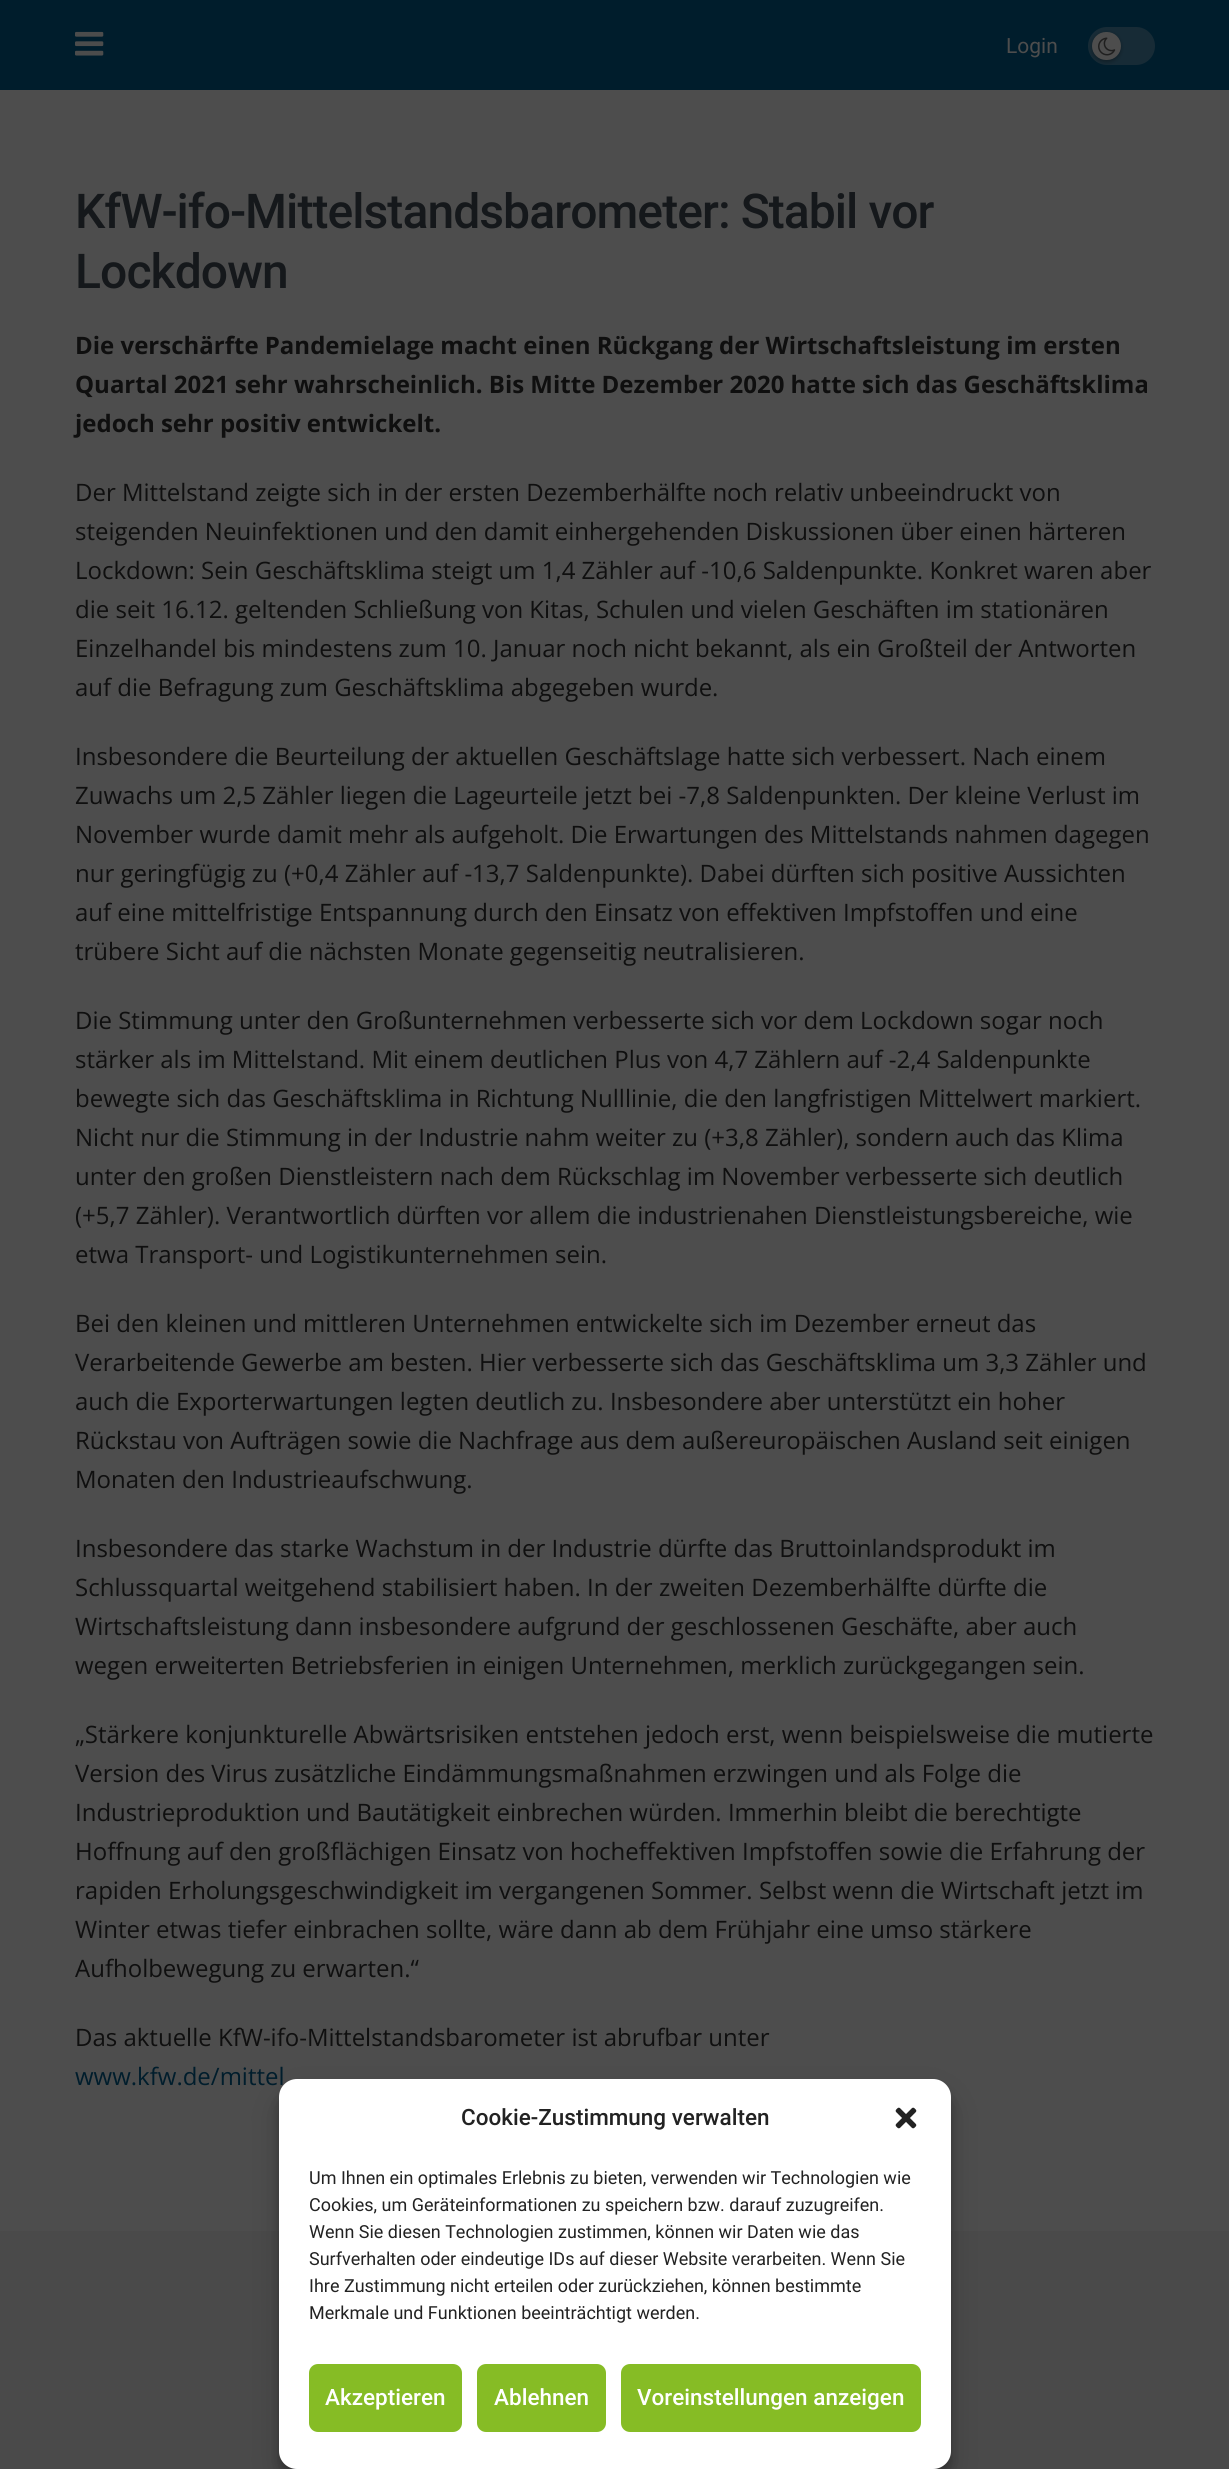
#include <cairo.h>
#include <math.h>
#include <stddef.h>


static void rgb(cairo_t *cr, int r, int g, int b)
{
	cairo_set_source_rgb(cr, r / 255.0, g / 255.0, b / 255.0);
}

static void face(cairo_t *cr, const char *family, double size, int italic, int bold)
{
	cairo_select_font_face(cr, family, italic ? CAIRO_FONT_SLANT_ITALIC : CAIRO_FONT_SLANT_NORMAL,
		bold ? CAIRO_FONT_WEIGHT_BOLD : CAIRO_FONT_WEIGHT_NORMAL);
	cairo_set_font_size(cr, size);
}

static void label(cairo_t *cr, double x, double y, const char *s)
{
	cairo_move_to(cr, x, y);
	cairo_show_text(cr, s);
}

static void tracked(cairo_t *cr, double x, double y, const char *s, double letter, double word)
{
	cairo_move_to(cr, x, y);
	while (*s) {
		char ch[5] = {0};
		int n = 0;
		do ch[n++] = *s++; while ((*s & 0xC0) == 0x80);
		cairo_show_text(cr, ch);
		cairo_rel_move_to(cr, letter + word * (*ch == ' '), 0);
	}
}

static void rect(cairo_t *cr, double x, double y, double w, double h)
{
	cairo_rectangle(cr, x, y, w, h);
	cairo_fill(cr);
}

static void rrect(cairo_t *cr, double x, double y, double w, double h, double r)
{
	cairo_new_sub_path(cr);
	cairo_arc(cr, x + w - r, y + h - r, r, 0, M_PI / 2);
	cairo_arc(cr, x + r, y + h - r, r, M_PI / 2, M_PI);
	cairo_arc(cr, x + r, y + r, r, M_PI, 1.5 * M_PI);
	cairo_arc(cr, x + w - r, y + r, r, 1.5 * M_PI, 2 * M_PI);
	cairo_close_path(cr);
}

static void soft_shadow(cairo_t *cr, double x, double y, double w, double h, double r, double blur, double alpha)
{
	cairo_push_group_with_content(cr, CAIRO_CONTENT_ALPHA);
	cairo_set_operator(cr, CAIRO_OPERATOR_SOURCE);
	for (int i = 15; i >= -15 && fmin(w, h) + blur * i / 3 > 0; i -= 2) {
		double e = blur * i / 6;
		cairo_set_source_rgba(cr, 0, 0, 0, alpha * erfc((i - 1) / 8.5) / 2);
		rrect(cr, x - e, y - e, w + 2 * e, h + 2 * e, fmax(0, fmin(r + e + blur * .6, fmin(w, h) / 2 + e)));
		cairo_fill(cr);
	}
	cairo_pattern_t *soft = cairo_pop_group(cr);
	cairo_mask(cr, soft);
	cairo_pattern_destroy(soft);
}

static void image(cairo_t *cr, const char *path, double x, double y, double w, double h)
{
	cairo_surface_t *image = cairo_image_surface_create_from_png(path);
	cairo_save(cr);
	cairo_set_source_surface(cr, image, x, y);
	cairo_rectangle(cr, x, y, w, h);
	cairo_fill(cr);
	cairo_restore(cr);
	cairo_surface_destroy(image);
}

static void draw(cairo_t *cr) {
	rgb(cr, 77, 77, 77);
	cairo_paint(cr);
	rgb(cr, 0, 29, 44);
	rect(cr, 0, 0, 1229, 90);
	image(cr, "image0.png", 75, 31, 29, 25);
	face(cr, "Roboto", 21, 0, 0);
	rgb(cr, 77, 77, 77);
	label(cr, 1006, 53, "Login");
	rgb(cr, 23, 43, 54);
	rrect(cr, 1088, 27, 67, 38, 19);
	cairo_fill(cr);
	rgb(cr, 0, 0, 0);
	soft_shadow(cr, 1092, 33, 29, 29, 14.5, 2, 0.3);
	rgb(cr, 77, 77, 77);
	rrect(cr, 1092, 32, 29, 28, 14);
	cairo_fill(cr);
	image(cr, "image1.png", 1098, 37, 18, 19);
	face(cr, "Roboto Medium", 48, 0, 0);
	rgb(cr, 21, 24, 27);
	tracked(cr, 75, 228, "KfW-ifo-Mittelstandsbarometer: Stabil vor", -0.95, 0);
	tracked(cr, 75, 288, "Lockdown", -0.95, 0);
	face(cr, "Open Sans", 24, 0, 1);
	rgb(cr, 15, 15, 15);
	label(cr, 75, 354, "Die verschärfte Pandemielage macht einen Rückgang der Wirtschaftsleistung im ersten");
	label(cr, 75, 393, "Quartal 2021 sehr wahrscheinlich. Bis Mitte Dezember 2020 hatte sich das Geschäftsklima");
	label(cr, 75, 432, "jedoch sehr positiv entwickelt.");
	face(cr, "Open Sans", 24, 0, 0);
	label(cr, 75, 501, "Der Mittelstand zeigte sich in der ersten Dezemberhälfte noch relativ unbeeindruckt von");
	label(cr, 75, 540, "steigenden Neuinfektionen und den damit einhergehenden Diskussionen über einen härteren");
	label(cr, 75, 579, "Lockdown: Sein Geschäftsklima steigt um 1,4 Zähler auf -10,6 Saldenpunkte. Konkret waren aber");
	label(cr, 75, 618, "die seit 16.12. geltenden Schließung von Kitas, Schulen und vielen Geschäften im stationären");
	label(cr, 75, 657, "Einzelhandel bis mindestens zum 10. Januar noch nicht bekannt, als ein Großteil der Antworten");
	label(cr, 75, 696, "auf die Befragung zum Geschäftsklima abgegeben wurde.");
	label(cr, 75, 765, "Insbesondere die Beurteilung der aktuellen Geschäftslage hatte sich verbessert. Nach einem");
	label(cr, 75, 804, "Zuwachs um 2,5 Zähler liegen die Lageurteile jetzt bei -7,8 Saldenpunkten. Der kleine Verlust im");
	label(cr, 75, 843, "November wurde damit mehr als aufgeholt. Die Erwartungen des Mittelstands nahmen dagegen");
	label(cr, 75, 882, "nur geringfügig zu (+0,4 Zähler auf -13,7 Saldenpunkte). Dabei dürften sich positive Aussichten");
	label(cr, 75, 921, "auf eine mittelfristige Entspannung durch den Einsatz von effektiven Impfstoffen und eine");
	label(cr, 75, 960, "trübere Sicht auf die nächsten Monate gegenseitig neutralisieren.");
	label(cr, 75, 1029, "Die Stimmung unter den Großunternehmen verbesserte sich vor dem Lockdown sogar noch");
	label(cr, 75, 1068, "stärker als im Mittelstand. Mit einem deutlichen Plus von 4,7 Zählern auf -2,4 Saldenpunkte");
	label(cr, 75, 1107, "bewegte sich das Geschäftsklima in Richtung Nulllinie, die den langfristigen Mittelwert markiert.");
	label(cr, 75, 1146, "Nicht nur die Stimmung in der Industrie nahm weiter zu (+3,8 Zähler), sondern auch das Klima");
	label(cr, 75, 1185, "unter den großen Dienstleistern nach dem Rückschlag im November verbesserte sich deutlich");
	label(cr, 75, 1224, "(+5,7 Zähler). Verantwortlich dürften vor allem die industrienahen Dienstleistungsbereiche, wie");
	label(cr, 75, 1263, "etwa Transport- und Logistikunternehmen sein.");
	label(cr, 75, 1332, "Bei den kleinen und mittleren Unternehmen entwickelte sich im Dezember erneut das");
	label(cr, 75, 1371, "Verarbeitende Gewerbe am besten. Hier verbesserte sich das Geschäftsklima um 3,3 Zähler und");
	label(cr, 75, 1410, "auch die Exporterwartungen legten deutlich zu. Insbesondere aber unterstützt ein hoher");
	label(cr, 75, 1449, "Rückstau von Aufträgen sowie die Nachfrage aus dem außereuropäischen Ausland seit einigen");
	label(cr, 75, 1488, "Monaten den Industrieaufschwung.");
	label(cr, 75, 1557, "Insbesondere das starke Wachstum in der Industrie dürfte das Bruttoinlandsprodukt im");
	label(cr, 75, 1596, "Schlussquartal weitgehend stabilisiert haben. In der zweiten Dezemberhälfte dürfte die");
	label(cr, 75, 1635, "Wirtschaftsleistung dann insbesondere aufgrund der geschlossenen Geschäfte, aber auch");
	label(cr, 75, 1674, "wegen erweiterten Betriebsferien in einigen Unternehmen, merklich zurückgegangen sein.");
	label(cr, 75, 1743, "„Stärkere konjunkturelle Abwärtsrisiken entstehen jedoch erst, wenn beispielsweise die mutierte");
	label(cr, 75, 1782, "Version des Virus zusätzliche Eindämmungsmaßnahmen erzwingen und als Folge die");
	label(cr, 75, 1821, "Industrieproduktion und Bautätigkeit einbrechen würden. Immerhin bleibt die berechtigte");
	label(cr, 75, 1860, "Hoffnung auf den großflächigen Einsatz von hocheffektiven Impfstoffen sowie die Erfahrung der");
	label(cr, 75, 1899, "rapiden Erholungsgeschwindigkeit im vergangenen Sommer. Selbst wenn die Wirtschaft jetzt im");
	label(cr, 75, 1938, "Winter etwas tiefer einbrachen sollte, wäre dann ab dem Frühjahr eine umso stärkere");
	label(cr, 75, 1977, "Aufholbewegung zu erwarten.“");
	label(cr, 75, 2046, "Das aktuelle KfW-ifo-Mittelstandsbarometer ist abrufbar unter");
	rgb(cr, 0, 29, 44);
	label(cr, 75, 2085, "www.kfw.de/mittel");
	rgb(cr, 74, 74, 74);
	rect(cr, 0, 2231, 1229, 238);
	rgb(cr, 0, 0, 0);
	soft_shadow(cr, 279, 2088, 672, 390, 18, 4.5, 0.23);
	soft_shadow(cr, 279, 2094, 672, 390, 18, 15, 0.19);
	rgb(cr, 255, 255, 255);
	rrect(cr, 279, 2079, 672, 390, 18);
	cairo_fill(cr);
	face(cr, "Roboto Medium", 22.5, 0, 0);
	rgb(cr, 34, 34, 34);
	label(cr, 461, 2125, "Cookie-Zustimmung verwalten");
	image(cr, "image2.png", 895, 2107, 22, 22);
	face(cr, "Roboto", 18, 0, 0);
	label(cr, 309, 2184, "Um Ihnen ein optimales Erlebnis zu bieten, verwenden wir Technologien wie");
	label(cr, 309, 2211, "Cookies, um Geräteinformationen zu speichern bzw. darauf zuzugreifen.");
	label(cr, 309, 2238, "Wenn Sie diesen Technologien zustimmen, können wir Daten wie das");
	label(cr, 309, 2265, "Surfverhalten oder eindeutige IDs auf dieser Website verarbeiten. Wenn Sie");
	label(cr, 309, 2292, "Ihre Zustimmung nicht erteilen oder zurückziehen, können bestimmte");
	label(cr, 309, 2319, "Merkmale und Funktionen beeinträchtigt werden.");
	rgb(cr, 134, 188, 37);
	rrect(cr, 310, 2365, 151, 66, 8);
	cairo_fill_preserve(cr);
	cairo_stroke(cr);
	face(cr, "Roboto Medium", 22.5, 0, 0);
	rgb(cr, 255, 255, 255);
	label(cr, 325, 2405, "Akzeptieren");
	rgb(cr, 134, 188, 37);
	rrect(cr, 478, 2365, 127, 66, 8);
	cairo_fill_preserve(cr);
	cairo_stroke(cr);
	rgb(cr, 255, 255, 255);
	label(cr, 494, 2405, "Ablehnen");
	rgb(cr, 134, 188, 37);
	rrect(cr, 622, 2365, 298, 66, 8);
	cairo_fill_preserve(cr);
	cairo_stroke(cr);
	rgb(cr, 255, 255, 255);
	label(cr, 637, 2405, "Voreinstellungen anzeigen");
}

int main(void) {
	cairo_surface_t *surface = cairo_image_surface_create(CAIRO_FORMAT_RGB24, 1229, 2469);
	cairo_t *cr = cairo_create(surface);
	cairo_font_options_t *options = cairo_font_options_create();
	cairo_font_options_set_hint_metrics(options, CAIRO_HINT_METRICS_OFF);
	cairo_font_options_set_hint_style(options, CAIRO_HINT_STYLE_NONE);
	cairo_set_font_options(cr, options);
	cairo_set_miter_limit(cr, 4);
	draw(cr);
	cairo_surface_write_to_png(surface, "render.png");
	cairo_font_options_destroy(options);
	cairo_destroy(cr);
	cairo_surface_destroy(surface);
	return 0;
}
